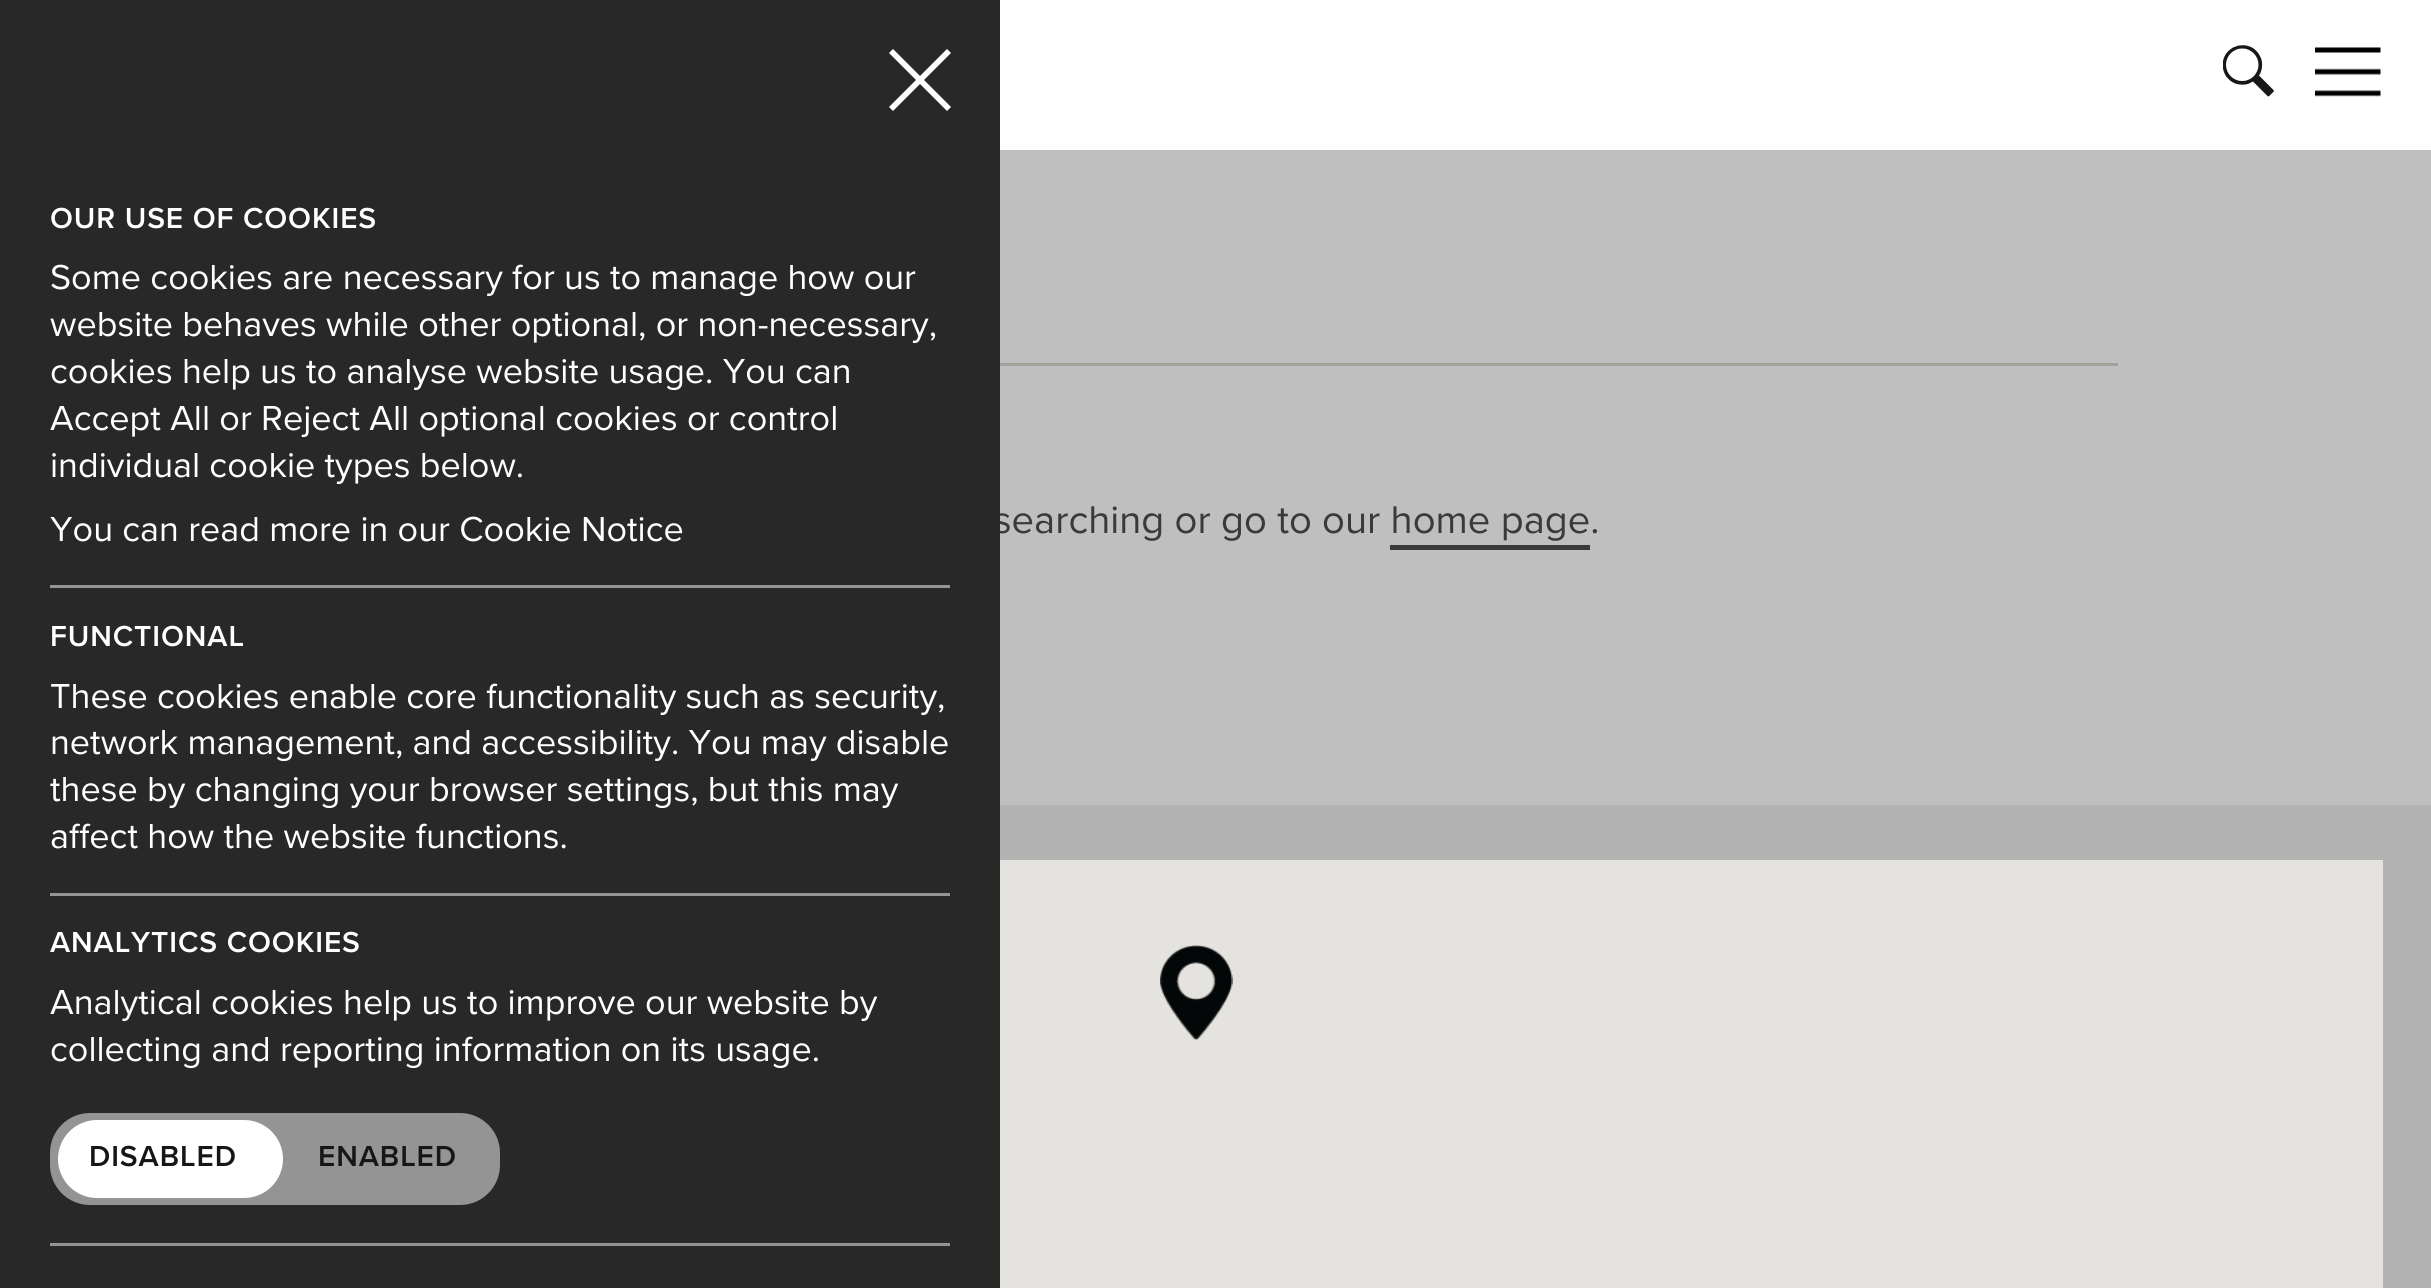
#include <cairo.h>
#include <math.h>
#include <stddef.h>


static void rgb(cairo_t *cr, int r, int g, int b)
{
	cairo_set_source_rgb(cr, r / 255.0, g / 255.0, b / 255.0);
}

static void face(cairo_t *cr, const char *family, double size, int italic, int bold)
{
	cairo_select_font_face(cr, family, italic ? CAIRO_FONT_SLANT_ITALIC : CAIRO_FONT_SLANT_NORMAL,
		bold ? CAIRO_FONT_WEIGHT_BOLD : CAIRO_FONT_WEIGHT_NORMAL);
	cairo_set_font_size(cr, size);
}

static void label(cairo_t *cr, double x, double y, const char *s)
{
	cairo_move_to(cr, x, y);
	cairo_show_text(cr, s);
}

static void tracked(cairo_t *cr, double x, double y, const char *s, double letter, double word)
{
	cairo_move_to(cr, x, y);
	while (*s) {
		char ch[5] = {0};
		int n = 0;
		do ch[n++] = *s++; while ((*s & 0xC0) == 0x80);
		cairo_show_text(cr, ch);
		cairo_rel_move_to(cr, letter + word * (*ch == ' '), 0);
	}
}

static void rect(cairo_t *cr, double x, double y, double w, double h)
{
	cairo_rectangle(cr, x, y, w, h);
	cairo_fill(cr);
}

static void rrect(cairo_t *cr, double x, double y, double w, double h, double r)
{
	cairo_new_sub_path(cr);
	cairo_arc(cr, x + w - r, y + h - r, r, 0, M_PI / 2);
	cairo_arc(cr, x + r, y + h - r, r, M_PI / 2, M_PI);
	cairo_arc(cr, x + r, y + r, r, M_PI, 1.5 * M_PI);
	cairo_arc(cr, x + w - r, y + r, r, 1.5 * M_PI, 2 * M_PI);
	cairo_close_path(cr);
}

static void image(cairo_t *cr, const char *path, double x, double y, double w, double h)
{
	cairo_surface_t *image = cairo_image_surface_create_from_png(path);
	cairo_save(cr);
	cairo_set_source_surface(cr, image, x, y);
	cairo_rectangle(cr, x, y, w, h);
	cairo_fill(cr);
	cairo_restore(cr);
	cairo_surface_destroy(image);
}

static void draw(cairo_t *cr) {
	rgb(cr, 191, 191, 191);
	cairo_paint(cr);
	rgb(cr, 255, 255, 255);
	rect(cr, 1000, 0, 1431, 150);
	image(cr, "image0.png", 2223, 45, 51, 52);
	image(cr, "image1.png", 2315, 47, 66, 50);
	face(cr, "Proxima Nova", 40, 0, 0);
	rgb(cr, 58, 58, 58);
	label(cr, 993, 533, "searching or go to our home page.");
	rgb(cr, 40, 40, 40);
	rect(cr, 0, 0, 1000, 1288);
	rgb(cr, 255, 255, 255);
	cairo_new_path(cr);
	cairo_move_to(cr, 947, 49);
	cairo_line_to(cr, 951, 53);
	cairo_line_to(cr, 893, 111);
	cairo_line_to(cr, 889, 107);
	cairo_close_path(cr);
	cairo_fill(cr);
	cairo_new_path(cr);
	cairo_move_to(cr, 889, 53);
	cairo_line_to(cr, 893, 49);
	cairo_line_to(cr, 951, 107);
	cairo_line_to(cr, 947, 111);
	cairo_close_path(cr);
	cairo_fill(cr);
	face(cr, "Proxima Nova SemiBold", 30, 0, 0);
	tracked(cr, 50, 228, "OUR USE OF COOKIES", 0.9, 0);
	face(cr, "Proxima Nova", 36, 0, 0);
	label(cr, 50, 289, "Some cookies are necessary for us to manage how our");
	label(cr, 50, 336, "website behaves while other optional, or non-necessary,");
	label(cr, 50, 383, "cookies help us to analyse website usage. You can");
	label(cr, 50, 430, "Accept All or Reject All optional cookies or control");
	label(cr, 50, 477, "individual cookie types below.");
	label(cr, 50, 541, "You can read more in our Cookie Notice");
	rgb(cr, 148, 148, 148);
	rect(cr, 50, 585, 900, 3);
	face(cr, "Proxima Nova SemiBold", 30, 0, 0);
	rgb(cr, 255, 255, 255);
	tracked(cr, 50, 646, "FUNCTIONAL", 0.9, 0);
	face(cr, "Proxima Nova", 36, 0, 0);
	label(cr, 50, 708, "These cookies enable core functionality such as security,");
	label(cr, 50, 754, "network management, and accessibility. You may disable");
	label(cr, 50, 801, "these by changing your browser settings, but this may");
	label(cr, 50, 848, "affect how the website functions.");
	rgb(cr, 148, 148, 148);
	rect(cr, 50, 893, 900, 3);
	face(cr, "Proxima Nova SemiBold", 30, 0, 0);
	rgb(cr, 255, 255, 255);
	tracked(cr, 50, 952, "ANALYTICS COOKIES", 0.9, 0);
	face(cr, "Proxima Nova", 36, 0, 0);
	label(cr, 50, 1014, "Analytical cookies help us to improve our website by");
	label(cr, 50, 1061, "collecting and reporting information on its usage.");
	rrect(cr, 58, 1120, 225, 78, 39);
	cairo_fill(cr);
	cairo_set_source_rgba(cr, 1, 1, 1, 0.5);
	rrect(cr, 50, 1113, 450, 92, 40);
	cairo_fill(cr);
	face(cr, "Proxima Nova SemiBold", 30, 0, 0);
	rgb(cr, 23, 22, 20);
	tracked(cr, 89, 1166, "DISABLED", 0.9, 0);
	tracked(cr, 318, 1166, "ENABLED", 0.9, 0);
	rgb(cr, 148, 148, 148);
	rect(cr, 50, 1243, 900, 3);
	rgb(cr, 164, 161, 154);
	rect(cr, 1000, 363, 1118, 3);
	rgb(cr, 58, 58, 58);
	rect(cr, 1390, 545, 200, 5);
	rgb(cr, 179, 179, 179);
	rect(cr, 1000, 805, 1431, 483);
	rgb(cr, 229, 227, 223);
	rect(cr, 1000, 860, 1383, 428);
	image(cr, "image2.png", 1160, 945, 73, 95);
}

int main(void) {
	cairo_surface_t *surface = cairo_image_surface_create(CAIRO_FORMAT_RGB24, 2431, 1288);
	cairo_t *cr = cairo_create(surface);
	cairo_font_options_t *options = cairo_font_options_create();
	cairo_font_options_set_hint_metrics(options, CAIRO_HINT_METRICS_OFF);
	cairo_font_options_set_hint_style(options, CAIRO_HINT_STYLE_NONE);
	cairo_set_font_options(cr, options);
	cairo_set_miter_limit(cr, 4);
	draw(cr);
	cairo_surface_write_to_png(surface, "render.png");
	cairo_font_options_destroy(options);
	cairo_destroy(cr);
	cairo_surface_destroy(surface);
	return 0;
}
